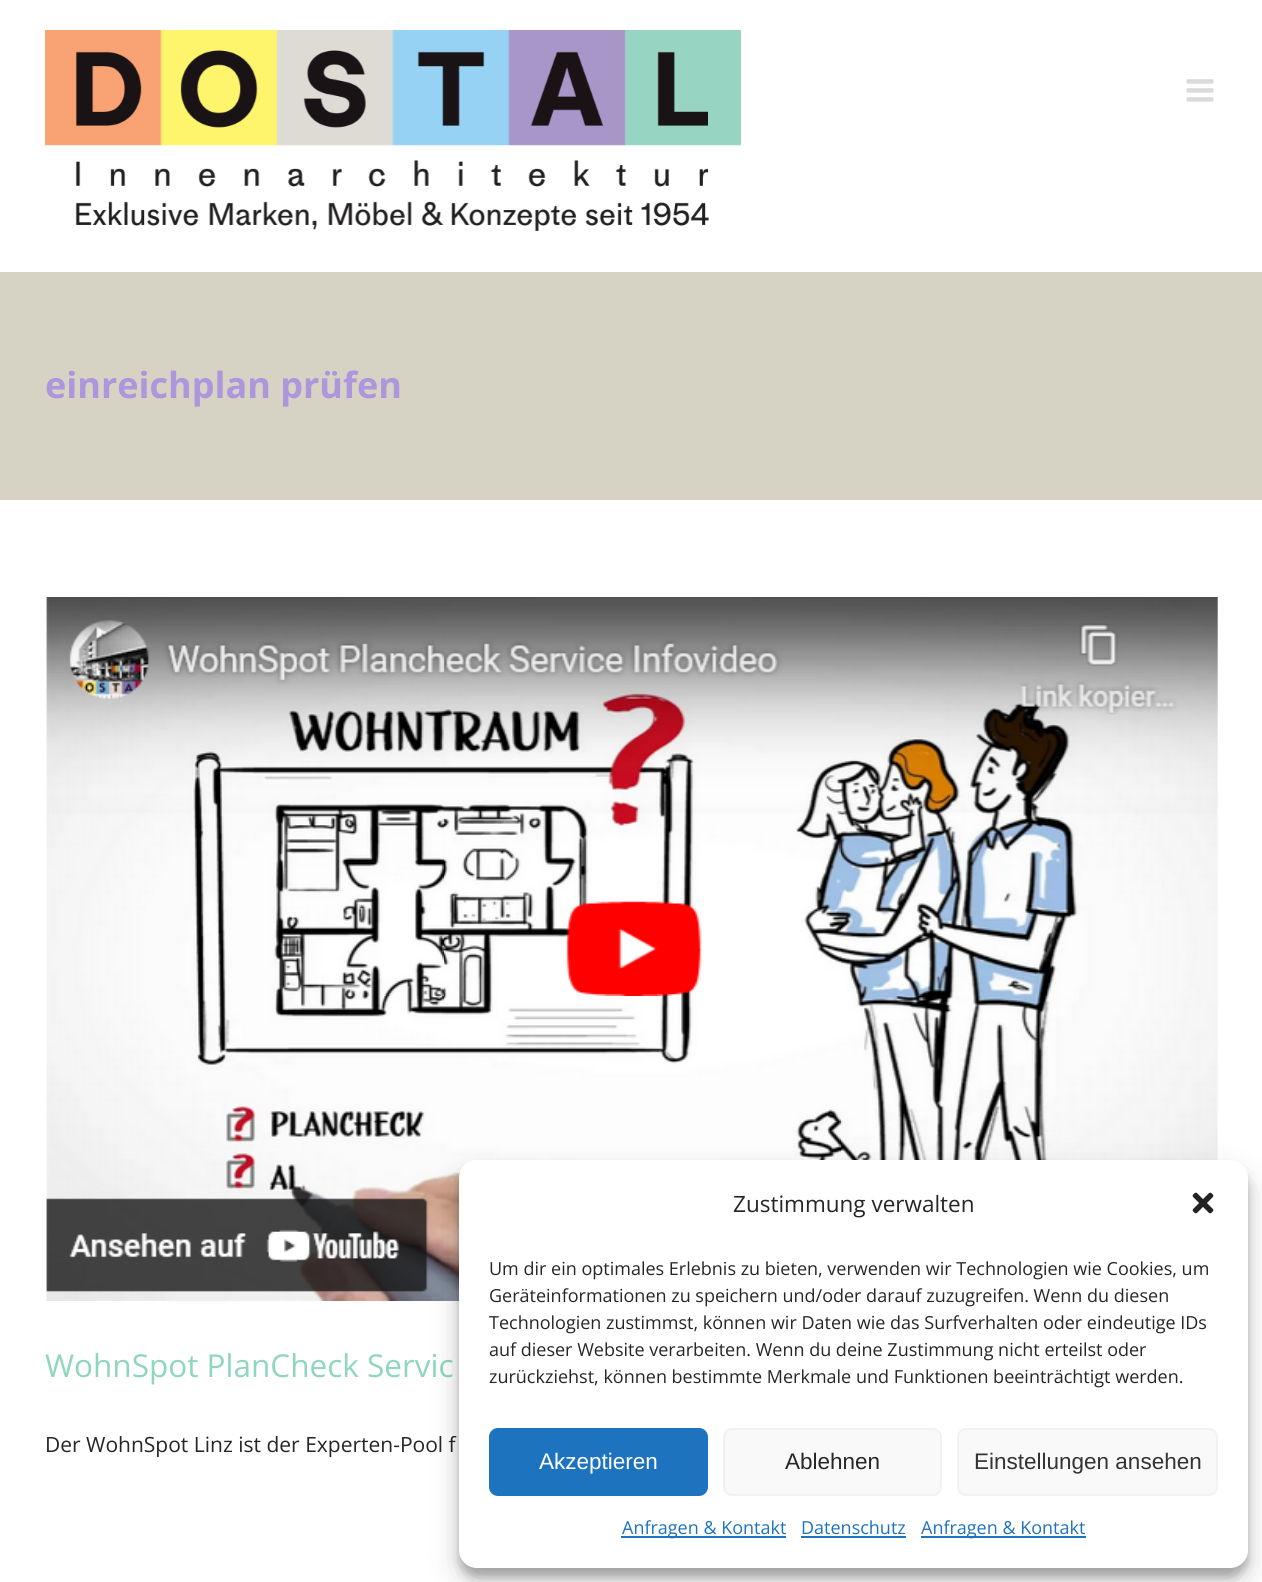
#include <cairo.h>
#include <math.h>
#include <stddef.h>


static void rgb(cairo_t *cr, int r, int g, int b)
{
	cairo_set_source_rgb(cr, r / 255.0, g / 255.0, b / 255.0);
}

static void face(cairo_t *cr, const char *family, double size, int italic, int bold)
{
	cairo_select_font_face(cr, family, italic ? CAIRO_FONT_SLANT_ITALIC : CAIRO_FONT_SLANT_NORMAL,
		bold ? CAIRO_FONT_WEIGHT_BOLD : CAIRO_FONT_WEIGHT_NORMAL);
	cairo_set_font_size(cr, size);
}

static void label(cairo_t *cr, double x, double y, const char *s)
{
	cairo_move_to(cr, x, y);
	cairo_show_text(cr, s);
}

static void rect(cairo_t *cr, double x, double y, double w, double h)
{
	cairo_rectangle(cr, x, y, w, h);
	cairo_fill(cr);
}

static void rrect(cairo_t *cr, double x, double y, double w, double h, double r)
{
	cairo_new_sub_path(cr);
	cairo_arc(cr, x + w - r, y + h - r, r, 0, M_PI / 2);
	cairo_arc(cr, x + r, y + h - r, r, M_PI / 2, M_PI);
	cairo_arc(cr, x + r, y + r, r, M_PI, 1.5 * M_PI);
	cairo_arc(cr, x + w - r, y + r, r, 1.5 * M_PI, 2 * M_PI);
	cairo_close_path(cr);
}

static void soft_shadow(cairo_t *cr, double x, double y, double w, double h, double r, double blur, double alpha)
{
	cairo_push_group_with_content(cr, CAIRO_CONTENT_ALPHA);
	cairo_set_operator(cr, CAIRO_OPERATOR_SOURCE);
	for (int i = 15; i >= -15 && fmin(w, h) + blur * i / 3 > 0; i -= 2) {
		double e = blur * i / 6;
		cairo_set_source_rgba(cr, 0, 0, 0, alpha * erfc((i - 1) / 8.5) / 2);
		rrect(cr, x - e, y - e, w + 2 * e, h + 2 * e, fmax(0, fmin(r + e + blur * .6, fmin(w, h) / 2 + e)));
		cairo_fill(cr);
	}
	cairo_pattern_t *soft = cairo_pop_group(cr);
	cairo_mask(cr, soft);
	cairo_pattern_destroy(soft);
}

static void image(cairo_t *cr, const char *path, double x, double y, double w, double h)
{
	cairo_surface_t *image = cairo_image_surface_create_from_png(path);
	cairo_save(cr);
	cairo_set_source_surface(cr, image, x, y);
	cairo_rectangle(cr, x, y, w, h);
	cairo_fill(cr);
	cairo_restore(cr);
	cairo_surface_destroy(image);
}

static void draw(cairo_t *cr) {
	rgb(cr, 255, 255, 255);
	cairo_paint(cr);
	image(cr, "image0.png", 45, 30, 696, 201);
	image(cr, "image1.png", 1186, 79, 28, 23);
	rgb(cr, 214, 210, 196);
	rect(cr, 0, 272, 1262, 228);
	face(cr, "Open Sans", 36, 0, 1);
	rgb(cr, 173, 150, 220);
	label(cr, 45, 398, "einreichplan prüfen");
	image(cr, "image2.png", 46, 597, 1172, 704);
	face(cr, "Open Sans", 31.5, 0, 0);
	rgb(cr, 143, 214, 189);
	label(cr, 45, 1377, "WohnSpot PlanCheck Servic");
	face(cr, "Open Sans", 21, 0, 0);
	rgb(cr, 38, 38, 38);
	label(cr, 45, 1452, "Der WohnSpot Linz ist der Experten-Pool f");
	rgb(cr, 0, 0, 0);
	soft_shadow(cr, 459, 1169, 789, 408, 18, 4.5, 0.23);
	soft_shadow(cr, 459, 1175, 789, 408, 18, 15, 0.19);
	rgb(cr, 255, 255, 255);
	rrect(cr, 459, 1160, 789, 408, 18);
	cairo_fill(cr);
	face(cr, "Open Sans", 22.5, 0, 0);
	rgb(cr, 38, 38, 38);
	label(cr, 733, 1212, "Zustimmung verwalten");
	image(cr, "image3.png", 1192, 1192, 22, 22);
	face(cr, "Open Sans", 18, 0, 0);
	label(cr, 489, 1275, "Um dir ein optimales Erlebnis zu bieten, verwenden wir Technologien wie Cookies, um");
	label(cr, 489, 1302, "Geräteinformationen zu speichern und/oder darauf zuzugreifen. Wenn du diesen");
	label(cr, 489, 1329, "Technologien zustimmst, können wir Daten wie das Surfverhalten oder eindeutige IDs");
	label(cr, 489, 1356, "auf dieser Website verarbeiten. Wenn du deine Zustimmung nicht erteilst oder");
	label(cr, 489, 1383, "zurückziehst, können bestimmte Merkmale und Funktionen beeinträchtigt werden.");
	rgb(cr, 30, 115, 190);
	rrect(cr, 490, 1429, 217, 66, 8);
	cairo_fill_preserve(cr);
	cairo_stroke(cr);
	face(cr, "Liberation Sans", 22.5, 0, 0);
	rgb(cr, 255, 255, 255);
	label(cr, 539, 1469, "Akzeptieren");
	rgb(cr, 249, 249, 249);
	rrect(cr, 724, 1429, 217, 66, 8);
	cairo_fill_preserve(cr);
	rgb(cr, 242, 242, 242);
	cairo_stroke(cr);
	rgb(cr, 38, 38, 38);
	label(cr, 785, 1469, "Ablehnen");
	rgb(cr, 249, 249, 249);
	rrect(cr, 958, 1429, 259, 66, 8);
	cairo_fill_preserve(cr);
	rgb(cr, 242, 242, 242);
	cairo_stroke(cr);
	rgb(cr, 51, 51, 51);
	label(cr, 974, 1469, "Einstellungen ansehen");
	rgb(cr, 30, 115, 190);
	rect(cr, 621, 1536, 165, 2);
	face(cr, "Open Sans", 18, 0, 0);
	label(cr, 622, 1534, "Anfragen & Kontakt");
	label(cr, 801, 1534, "Datenschutz");
	rect(cr, 801, 1536, 105, 2);
	rect(cr, 921, 1536, 165, 2);
	label(cr, 921, 1534, "Anfragen & Kontakt");
}

int main(void) {
	cairo_surface_t *surface = cairo_image_surface_create(CAIRO_FORMAT_RGB24, 1262, 1582);
	cairo_t *cr = cairo_create(surface);
	cairo_font_options_t *options = cairo_font_options_create();
	cairo_font_options_set_hint_metrics(options, CAIRO_HINT_METRICS_OFF);
	cairo_font_options_set_hint_style(options, CAIRO_HINT_STYLE_NONE);
	cairo_set_font_options(cr, options);
	cairo_set_miter_limit(cr, 4);
	draw(cr);
	cairo_surface_write_to_png(surface, "render.png");
	cairo_font_options_destroy(options);
	cairo_destroy(cr);
	cairo_surface_destroy(surface);
	return 0;
}
